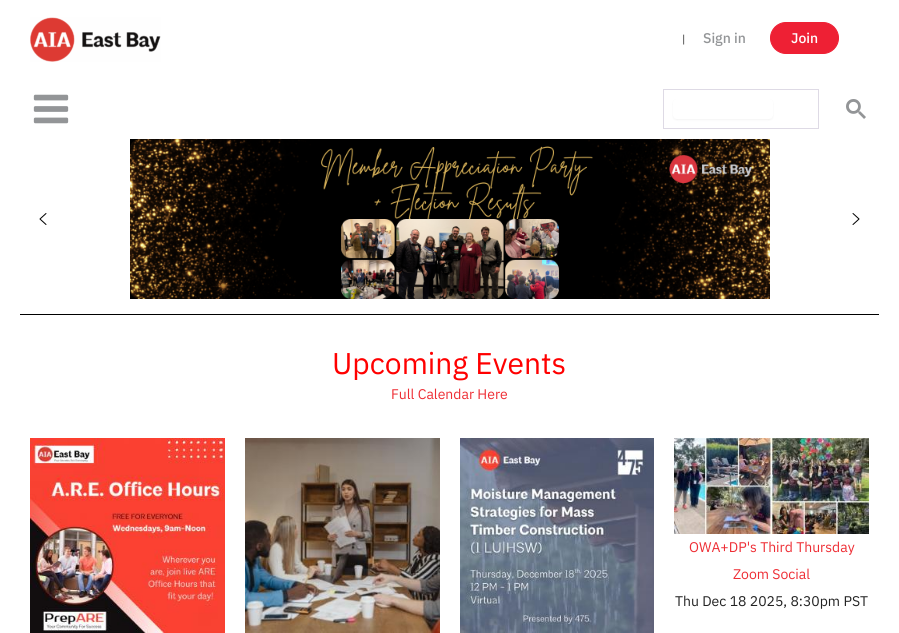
#include <cairo.h>
#include <math.h>
#include <stddef.h>


static void rgb(cairo_t *cr, int r, int g, int b)
{
	cairo_set_source_rgb(cr, r / 255.0, g / 255.0, b / 255.0);
}

static void face(cairo_t *cr, const char *family, double size, int italic, int bold)
{
	cairo_select_font_face(cr, family, italic ? CAIRO_FONT_SLANT_ITALIC : CAIRO_FONT_SLANT_NORMAL,
		bold ? CAIRO_FONT_WEIGHT_BOLD : CAIRO_FONT_WEIGHT_NORMAL);
	cairo_set_font_size(cr, size);
}

static void label(cairo_t *cr, double x, double y, const char *s)
{
	cairo_move_to(cr, x, y);
	cairo_show_text(cr, s);
}

static void rect(cairo_t *cr, double x, double y, double w, double h)
{
	cairo_rectangle(cr, x, y, w, h);
	cairo_fill(cr);
}

static void rrect(cairo_t *cr, double x, double y, double w, double h, double r)
{
	cairo_new_sub_path(cr);
	cairo_arc(cr, x + w - r, y + h - r, r, 0, M_PI / 2);
	cairo_arc(cr, x + r, y + h - r, r, M_PI / 2, M_PI);
	cairo_arc(cr, x + r, y + r, r, M_PI, 1.5 * M_PI);
	cairo_arc(cr, x + w - r, y + r, r, 1.5 * M_PI, 2 * M_PI);
	cairo_close_path(cr);
}

static void soft_shadow(cairo_t *cr, double x, double y, double w, double h, double r, double blur, double alpha)
{
	cairo_push_group_with_content(cr, CAIRO_CONTENT_ALPHA);
	cairo_set_operator(cr, CAIRO_OPERATOR_SOURCE);
	for (int i = 15; i >= -15 && fmin(w, h) + blur * i / 3 > 0; i -= 2) {
		double e = blur * i / 6;
		cairo_set_source_rgba(cr, 0, 0, 0, alpha * erfc((i - 1) / 8.5) / 2);
		rrect(cr, x - e, y - e, w + 2 * e, h + 2 * e, fmax(0, fmin(r + e + blur * .6, fmin(w, h) / 2 + e)));
		cairo_fill(cr);
	}
	cairo_pattern_t *soft = cairo_pop_group(cr);
	cairo_mask(cr, soft);
	cairo_pattern_destroy(soft);
}

static void image(cairo_t *cr, const char *path, double x, double y, double w, double h)
{
	cairo_surface_t *image = cairo_image_surface_create_from_png(path);
	cairo_save(cr);
	cairo_set_source_surface(cr, image, x, y);
	cairo_rectangle(cr, x, y, w, h);
	cairo_fill(cr);
	cairo_restore(cr);
	cairo_surface_destroy(image);
}

static void draw(cairo_t *cr) {
	rgb(cr, 255, 255, 255);
	cairo_paint(cr);
	image(cr, "image0.png", 30, 17, 131, 45);
	face(cr, "IBM Plex Sans", 11, 0, 0);
	rgb(cr, 34, 34, 34);
	label(cr, 682, 43, "|");
	face(cr, "IBM Plex Sans Medium", 14, 0, 0);
	rgb(cr, 147, 149, 151);
	label(cr, 703, 43, "Sign in");
	rgb(cr, 238, 32, 52);
	rrect(cr, 770.5, 22.5, 68, 31, 15.5);
	cairo_fill_preserve(cr);
	cairo_set_line_width(cr, 1);
	cairo_stroke(cr);
	rgb(cr, 255, 255, 255);
	label(cr, 791, 43, "Join");
	image(cr, "image1.png", 33, 94, 36, 30);
	cairo_rectangle(cr, 663.5, 89.5, 155, 39);
	rgb(cr, 222, 218, 229);
	cairo_stroke(cr);
	rgb(cr, 0, 0, 0);
	soft_shadow(cr, 673, 100, 100, 20, 4, 1, 0.05);
	rgb(cr, 255, 255, 255);
	rrect(cr, 673, 99, 100, 20, 4);
	cairo_fill(cr);
	image(cr, "image2.png", 846, 99, 20, 20);
	image(cr, "image3.png", 39, 213, 8, 12);
	image(cr, "image4.png", 130, 139, 640, 160);
	image(cr, "image5.png", 852, 213, 8, 12);
	rgb(cr, 0, 0, 0);
	rect(cr, 20, 314, 859, 1);
	face(cr, "IBM Plex Sans", 30, 0, 0);
	rgb(cr, 255, 0, 0);
	label(cr, 332, 374, "Upcoming Events");
	face(cr, "IBM Plex Sans", 14, 0, 0);
	rgb(cr, 238, 45, 52);
	label(cr, 391, 399, "Full Calendar Here");
	image(cr, "image6.png", 30, 438, 195, 195);
	image(cr, "image7.png", 245, 438, 195, 195);
	image(cr, "image8.png", 460, 438, 194, 195);
	image(cr, "image9.png", 674, 438, 195, 96);
	label(cr, 689, 552, "OWA+DP's Third Thursday");
	label(cr, 733, 579, "Zoom Social");
	rgb(cr, 34, 34, 34);
	label(cr, 675, 606, "Thu Dec 18 2025, 8:30pm PST");
}

int main(void) {
	cairo_surface_t *surface = cairo_image_surface_create(CAIRO_FORMAT_RGB24, 899, 633);
	cairo_t *cr = cairo_create(surface);
	cairo_font_options_t *options = cairo_font_options_create();
	cairo_font_options_set_hint_metrics(options, CAIRO_HINT_METRICS_OFF);
	cairo_font_options_set_hint_style(options, CAIRO_HINT_STYLE_NONE);
	cairo_set_font_options(cr, options);
	cairo_set_miter_limit(cr, 4);
	draw(cr);
	cairo_surface_write_to_png(surface, "render.png");
	cairo_font_options_destroy(options);
	cairo_destroy(cr);
	cairo_surface_destroy(surface);
	return 0;
}
